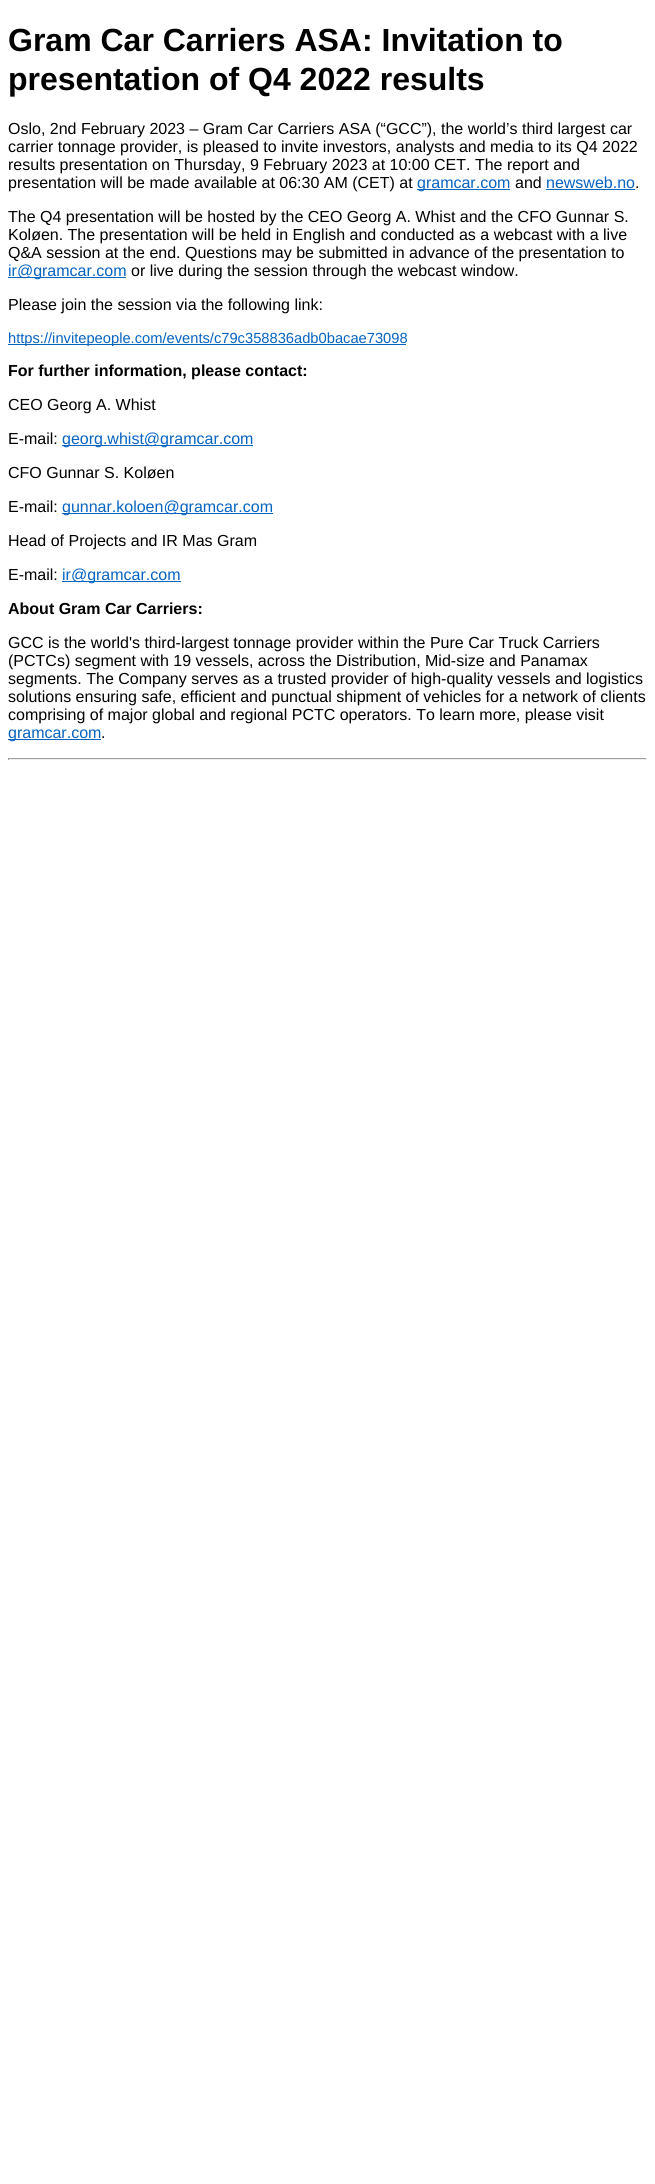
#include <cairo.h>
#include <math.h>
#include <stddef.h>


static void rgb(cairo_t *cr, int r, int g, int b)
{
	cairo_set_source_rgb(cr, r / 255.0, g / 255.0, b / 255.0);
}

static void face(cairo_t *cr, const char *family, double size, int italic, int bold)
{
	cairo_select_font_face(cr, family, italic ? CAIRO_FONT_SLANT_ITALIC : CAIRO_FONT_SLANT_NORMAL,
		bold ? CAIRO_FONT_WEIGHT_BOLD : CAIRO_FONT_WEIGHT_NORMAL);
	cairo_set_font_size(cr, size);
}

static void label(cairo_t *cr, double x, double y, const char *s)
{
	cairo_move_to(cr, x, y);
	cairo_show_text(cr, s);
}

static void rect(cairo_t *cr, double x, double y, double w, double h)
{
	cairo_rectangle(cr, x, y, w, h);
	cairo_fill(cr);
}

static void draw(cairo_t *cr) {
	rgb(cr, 255, 255, 255);
	cairo_paint(cr);
	face(cr, "Liberation Sans", 32, 0, 1);
	rgb(cr, 0, 0, 0);
	label(cr, 8, 51, "Gram Car Carriers ASA: Invitation to");
	label(cr, 8, 90, "presentation of Q4 2022 results");
	face(cr, "Liberation Sans", 16, 0, 0);
	label(cr, 8, 134, "Oslo, 2nd February 2023 – Gram Car Carriers ASA (“GCC”), the world’s third largest car");
	label(cr, 8, 152, "carrier tonnage provider, is pleased to invite investors, analysts and media to its Q4 2022");
	label(cr, 8, 170, "results presentation on Thursday, 9 February 2023 at 10:00 CET. The report and");
	label(cr, 8, 188, "presentation will be made available at 06:30 AM (CET) at");
	rgb(cr, 5, 99, 193);
	rect(cr, 417, 189, 93, 1);
	label(cr, 417, 188, "gramcar.com");
	rgb(cr, 0, 0, 0);
	label(cr, 515, 188, "and");
	rgb(cr, 5, 99, 193);
	label(cr, 546, 188, "newsweb.no");
	rgb(cr, 0, 0, 0);
	label(cr, 635, 188, ".");
	rgb(cr, 5, 99, 193);
	rect(cr, 546, 189, 89, 1);
	rgb(cr, 0, 0, 0);
	label(cr, 8, 222, "The Q4 presentation will be hosted by the CEO Georg A. Whist and the CFO Gunnar S.");
	label(cr, 8, 240, "Koløen. The presentation will be held in English and conducted as a webcast with a live");
	label(cr, 8, 258, "Q&A session at the end. Questions may be submitted in advance of the presentation to");
	rgb(cr, 5, 99, 193);
	rect(cr, 8, 277, 118, 1);
	label(cr, 8, 276, "ir@gramcar.com");
	rgb(cr, 0, 0, 0);
	label(cr, 131, 276, "or live during the session through the webcast window.");
	label(cr, 8, 310, "Please join the session via the following link:");
	rgb(cr, 5, 99, 193);
	rect(cr, 8, 344, 398, 1);
	face(cr, "Liberation Sans", 14.7, 0, 0);
	label(cr, 8, 343, "https://invitepeople.com/events/c79c358836adb0bacae73098");
	face(cr, "Liberation Sans", 16, 0, 1);
	rgb(cr, 0, 0, 0);
	label(cr, 8, 376, "For further information, please contact:");
	face(cr, "Liberation Sans", 16, 0, 0);
	label(cr, 8, 410, "CEO Georg A. Whist");
	label(cr, 8, 444, "E-mail:");
	rgb(cr, 5, 99, 193);
	rect(cr, 62, 445, 191, 1);
	label(cr, 62, 444, "georg.whist@gramcar.com");
	rgb(cr, 0, 0, 0);
	label(cr, 8, 478, "CFO Gunnar S. Koløen");
	label(cr, 8, 512, "E-mail:");
	rgb(cr, 5, 99, 193);
	rect(cr, 62, 513, 211, 1);
	label(cr, 62, 512, "gunnar.koloen@gramcar.com");
	rgb(cr, 0, 0, 0);
	label(cr, 8, 546, "Head of Projects and IR Mas Gram");
	label(cr, 8, 580, "E-mail:");
	rgb(cr, 5, 99, 193);
	rect(cr, 62, 581, 119, 1);
	label(cr, 62, 580, "ir@gramcar.com");
	face(cr, "Liberation Sans", 16, 0, 1);
	rgb(cr, 0, 0, 0);
	label(cr, 8, 614, "About Gram Car Carriers:");
	face(cr, "Liberation Sans", 16, 0, 0);
	label(cr, 8, 648, "GCC is the world's third-largest tonnage provider within the Pure Car Truck Carriers");
	label(cr, 8, 666, "(PCTCs) segment with 19 vessels, across the Distribution, Mid-size and Panamax");
	label(cr, 8, 684, "segments. The Company serves as a trusted provider of high-quality vessels and logistics");
	label(cr, 8, 702, "solutions ensuring safe, efficient and punctual shipment of vehicles for a network of clients");
	label(cr, 8, 720, "comprising of major global and regional PCTC operators. To learn more, please visit");
	rgb(cr, 5, 99, 193);
	rect(cr, 8, 739, 93, 1);
	label(cr, 8, 738, "gramcar.com");
	rgb(cr, 0, 0, 0);
	label(cr, 101, 738, ".");
	rgb(cr, 159, 159, 159);
	rect(cr, 8, 758, 639, 1);
	rgb(cr, 238, 238, 238);
	rect(cr, 646, 758, 1, 2);
	rect(cr, 8, 759, 639, 1);
	rgb(cr, 159, 159, 159);
	rect(cr, 8, 758, 1, 2);
}

int main(void) {
	cairo_surface_t *surface = cairo_image_surface_create(CAIRO_FORMAT_RGB24, 655, 2184);
	cairo_t *cr = cairo_create(surface);
	cairo_font_options_t *options = cairo_font_options_create();
	cairo_font_options_set_hint_metrics(options, CAIRO_HINT_METRICS_OFF);
	cairo_font_options_set_hint_style(options, CAIRO_HINT_STYLE_NONE);
	cairo_set_font_options(cr, options);
	cairo_set_miter_limit(cr, 4);
	draw(cr);
	cairo_surface_write_to_png(surface, "render.png");
	cairo_font_options_destroy(options);
	cairo_destroy(cr);
	cairo_surface_destroy(surface);
	return 0;
}
